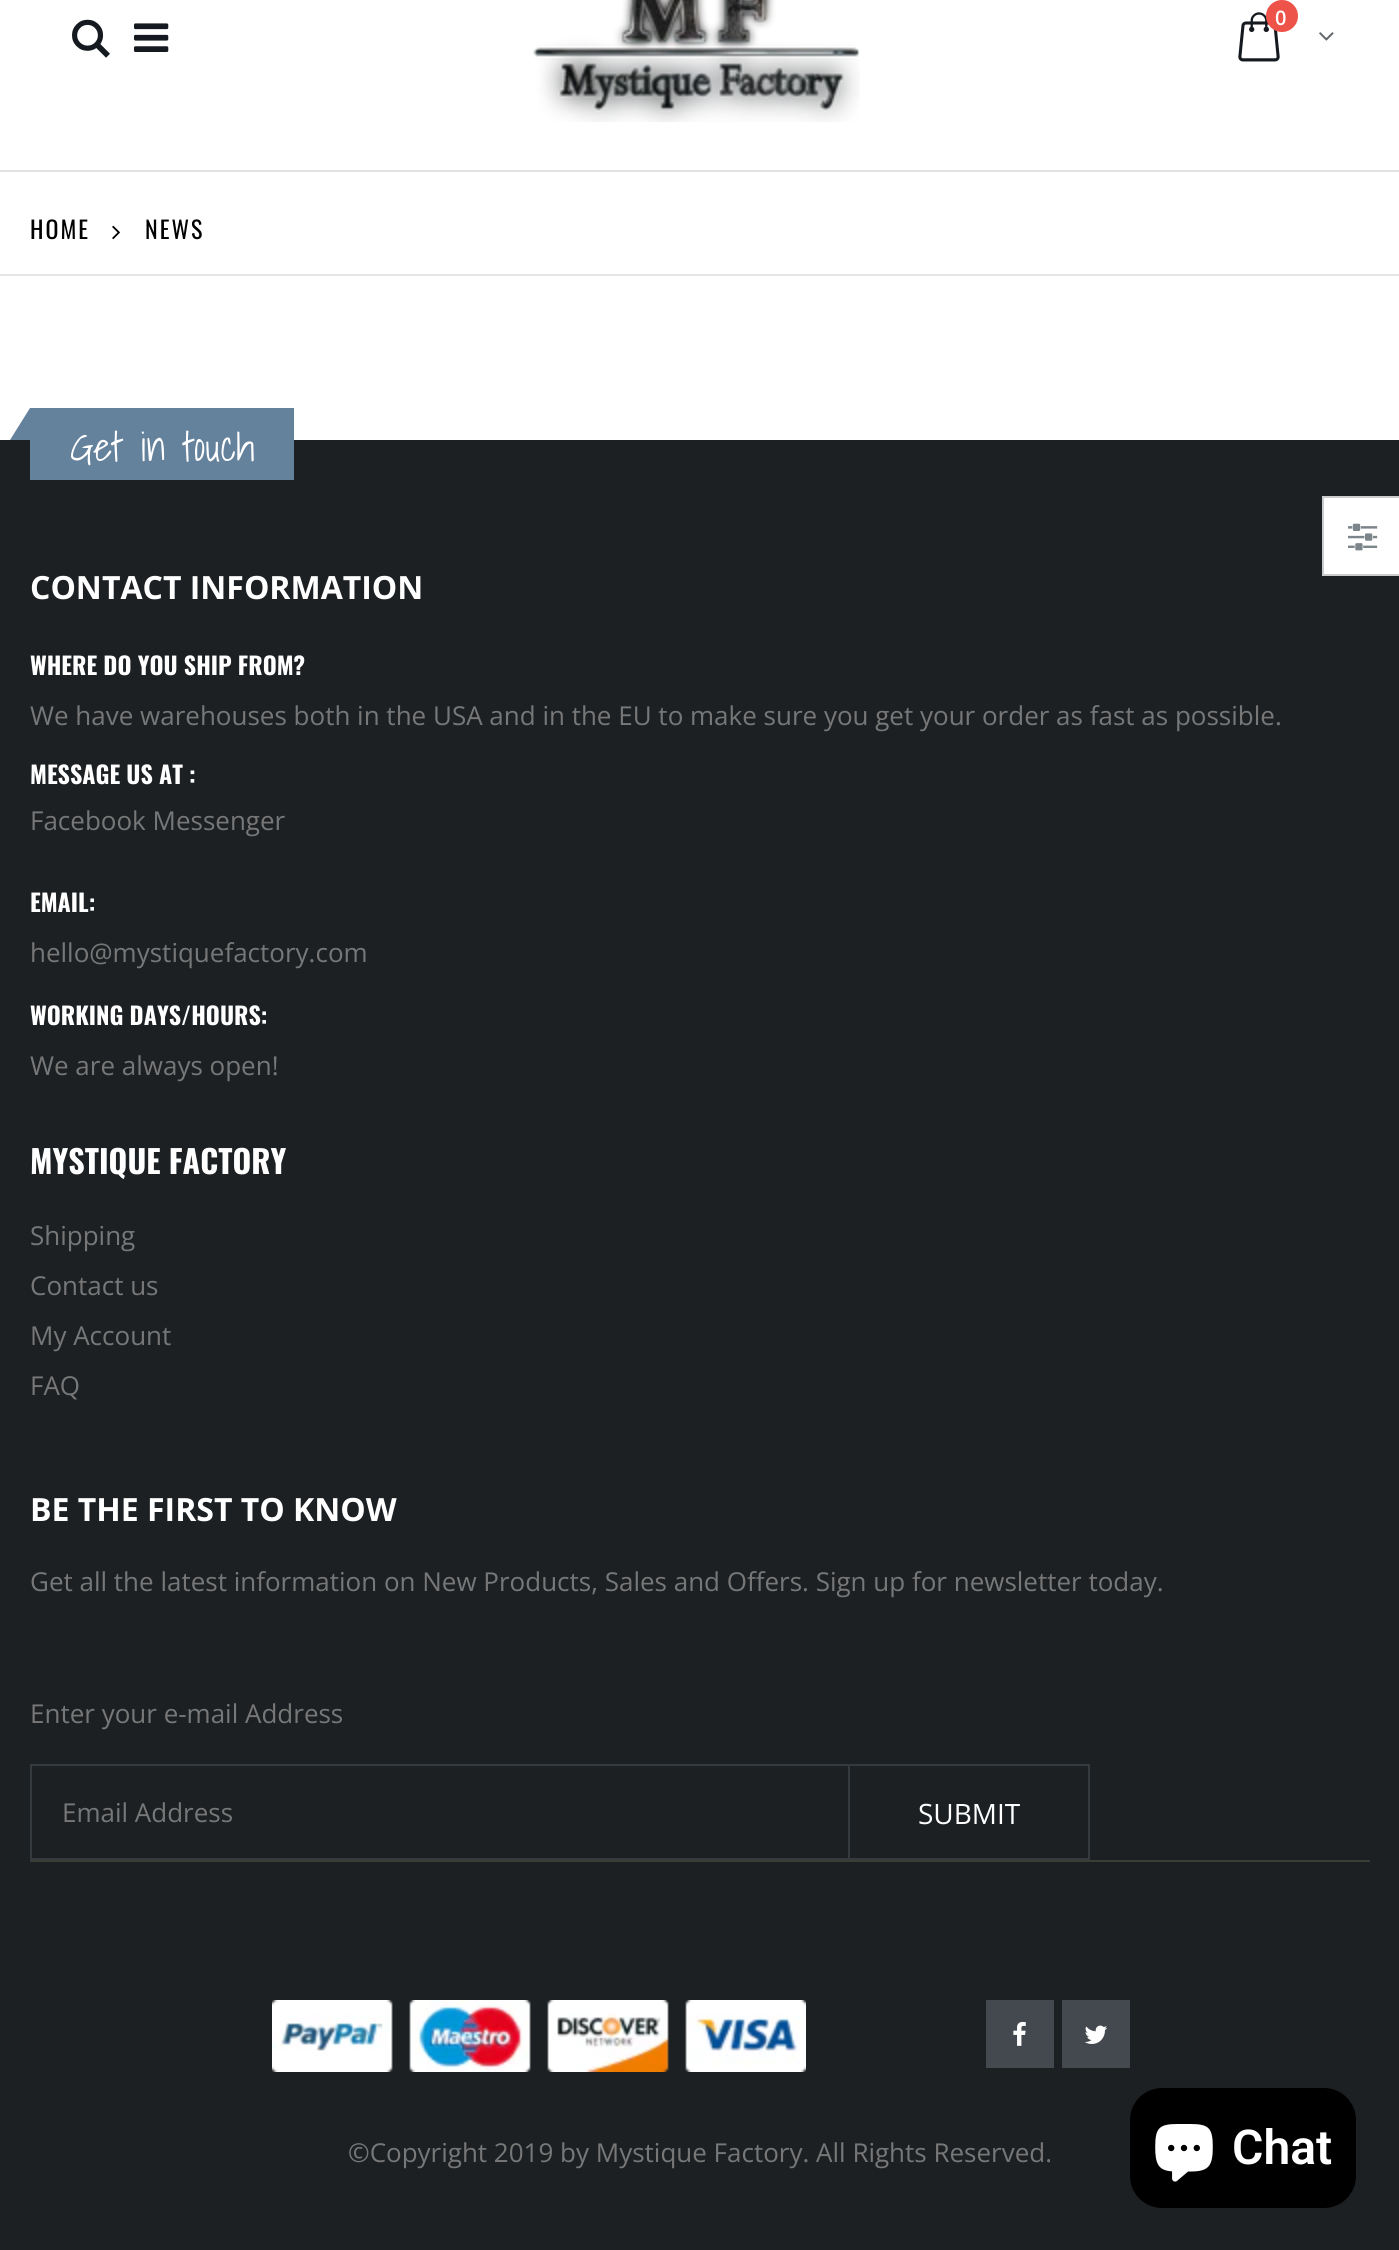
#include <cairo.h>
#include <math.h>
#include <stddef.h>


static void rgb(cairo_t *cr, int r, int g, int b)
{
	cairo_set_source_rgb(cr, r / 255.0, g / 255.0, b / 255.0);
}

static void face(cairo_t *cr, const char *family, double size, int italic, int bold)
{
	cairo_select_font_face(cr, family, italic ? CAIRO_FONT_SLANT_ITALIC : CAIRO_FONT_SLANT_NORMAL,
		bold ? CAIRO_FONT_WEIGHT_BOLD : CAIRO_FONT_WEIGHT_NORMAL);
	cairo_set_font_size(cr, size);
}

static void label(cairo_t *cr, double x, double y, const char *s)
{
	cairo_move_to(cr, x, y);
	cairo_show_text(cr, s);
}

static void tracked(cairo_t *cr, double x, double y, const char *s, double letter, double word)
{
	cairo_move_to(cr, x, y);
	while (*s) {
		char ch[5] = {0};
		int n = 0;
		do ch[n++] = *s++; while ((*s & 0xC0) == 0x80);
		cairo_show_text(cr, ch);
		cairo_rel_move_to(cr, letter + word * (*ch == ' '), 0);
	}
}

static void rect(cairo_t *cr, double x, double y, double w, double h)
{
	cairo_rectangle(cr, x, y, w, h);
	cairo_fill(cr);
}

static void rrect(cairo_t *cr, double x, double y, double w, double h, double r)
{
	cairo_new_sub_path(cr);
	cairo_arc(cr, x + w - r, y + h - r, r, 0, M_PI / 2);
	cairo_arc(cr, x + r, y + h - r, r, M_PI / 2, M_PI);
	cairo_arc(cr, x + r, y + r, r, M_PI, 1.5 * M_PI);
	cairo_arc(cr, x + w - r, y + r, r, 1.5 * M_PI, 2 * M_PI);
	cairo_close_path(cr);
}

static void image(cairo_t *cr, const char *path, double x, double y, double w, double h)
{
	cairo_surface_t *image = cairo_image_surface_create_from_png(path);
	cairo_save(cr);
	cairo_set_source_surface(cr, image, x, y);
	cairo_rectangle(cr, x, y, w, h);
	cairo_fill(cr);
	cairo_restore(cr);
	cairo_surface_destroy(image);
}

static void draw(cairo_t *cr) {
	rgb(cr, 255, 255, 255);
	cairo_paint(cr);
	rgb(cr, 225, 225, 225);
	rect(cr, 0, 170, 1399, 2);
	image(cr, "image0.png", 72, 19, 38, 39);
	image(cr, "image1.png", 134, 23, 35, 29);
	image(cr, "image2.png", 533, 0, 327, 122);
	image(cr, "image3.png", 1238, 12, 42, 50);
	rgb(cr, 237, 83, 72);
	cairo_arc(cr, 1282, 16, 16, 0, 2 * M_PI);
	cairo_fill(cr);
	face(cr, "Open Sans SemiBold", 20, 0, 0);
	rgb(cr, 255, 255, 255);
	label(cr, 1275, 25, "0");
	image(cr, "image4.png", 1319, 32, 15, 9);
	rgb(cr, 230, 230, 230);
	rect(cr, 0, 274, 1399, 2);
	face(cr, "Oswald", 24, 0, 0);
	rgb(cr, 0, 0, 0);
	tracked(cr, 30, 239, "HOME", 2, 0);
	image(cr, "image5.png", 112, 225, 8, 15);
	tracked(cr, 145, 239, "NEWS", 2, 0);
	rgb(cr, 28, 32, 35);
	rect(cr, 0, 440, 1399, 1810);
	rgb(cr, 255, 255, 255);
	rect(cr, 1324, 498, 75, 76);
	rgb(cr, 204, 204, 204);
	rect(cr, 1322, 496, 77, 2);
	rect(cr, 1322, 574, 77, 2);
	rect(cr, 1322, 496, 2, 80);
	image(cr, "image6.png", 1348, 523, 30, 28);
	rgb(cr, 101, 130, 157);
	rect(cr, 30, 408, 264, 72);
	cairo_new_path(cr);
	cairo_move_to(cr, 30, 408);
	cairo_line_to(cr, 30, 440);
	cairo_line_to(cr, 10, 440);
	cairo_close_path(cr);
	cairo_fill(cr);
	face(cr, "Shadows Into Light Light", 40, 0, 0);
	rgb(cr, 255, 255, 255);
	label(cr, 70, 461, "Get in touch");
	face(cr, "Open Sans", 32, 0, 1);
	label(cr, 30, 599, "CONTACT INFORMATION");
	face(cr, "Oswald", 24, 0, 1);
	label(cr, 30, 675, "WHERE DO YOU SHIP FROM?");
	face(cr, "Open Sans", 26, 0, 0);
	rgb(cr, 119, 119, 119);
	label(cr, 30, 725, "We have warehouses both in the USA and in the EU to make sure you get your order as fast as possible.");
	face(cr, "Oswald", 24, 0, 1);
	rgb(cr, 255, 255, 255);
	label(cr, 30, 784, "MESSAGE US AT :");
	face(cr, "Open Sans", 26, 0, 0);
	rgb(cr, 119, 119, 119);
	label(cr, 30, 830, "Facebook Messenger");
	face(cr, "Oswald", 24, 0, 1);
	rgb(cr, 255, 255, 255);
	label(cr, 30, 912, "EMAIL:");
	face(cr, "Open Sans", 26, 0, 0);
	rgb(cr, 119, 119, 119);
	label(cr, 30, 962, "hello@mystiquefactory.com");
	face(cr, "Oswald", 24, 0, 1);
	rgb(cr, 255, 255, 255);
	label(cr, 30, 1025, "WORKING DAYS/HOURS:");
	face(cr, "Open Sans", 26, 0, 0);
	rgb(cr, 119, 119, 119);
	label(cr, 30, 1075, "We are always open!");
	face(cr, "Oswald", 32, 0, 1);
	rgb(cr, 255, 255, 255);
	label(cr, 30, 1174, "MYSTIQUE FACTORY");
	face(cr, "Open Sans", 26, 0, 0);
	rgb(cr, 119, 119, 119);
	label(cr, 30, 1245, "Shipping");
	label(cr, 30, 1295, "Contact us");
	label(cr, 30, 1345, "My Account");
	label(cr, 30, 1395, "FAQ");
	face(cr, "Open Sans", 32, 0, 1);
	rgb(cr, 255, 255, 255);
	label(cr, 30, 1521, "BE THE FIRST TO KNOW");
	face(cr, "Open Sans", 26, 0, 0);
	rgb(cr, 119, 119, 119);
	label(cr, 30, 1591, "Get all the latest information on New Products, Sales and Offers. Sign up for newsletter today.");
	label(cr, 30, 1723, "Enter your e-mail Address");
	cairo_rectangle(cr, 31, 1765, 818, 94);
	rgb(cr, 53, 58, 62);
	cairo_stroke(cr);
	rgb(cr, 119, 119, 119);
	label(cr, 62, 1822, "Email Address");
	rgb(cr, 53, 58, 62);
	rect(cr, 850, 1764, 240, 2);
	rect(cr, 1088, 1764, 2, 96);
	rect(cr, 850, 1858, 240, 2);
	face(cr, "Open Sans", 28, 0, 0);
	rgb(cr, 255, 255, 255);
	label(cr, 918, 1824, "SUBMIT");
	rgb(cr, 61, 61, 56);
	rect(cr, 30, 1860, 1340, 2);
	image(cr, "image7.png", 272, 2000, 534, 72);
	rgb(cr, 67, 73, 78);
	rect(cr, 986, 2000, 68, 68);
	image(cr, "image8.png", 1013, 2021, 13, 25);
	rect(cr, 1062, 2000, 68, 68);
	image(cr, "image9.png", 1085, 2025, 23, 19);
	face(cr, "Open Sans", 26, 0, 0);
	rgb(cr, 119, 119, 119);
	label(cr, 348, 2162, "©Copyright 2019 by Mystique Factory. All Rights Reserved.");
	rgb(cr, 0, 0, 0);
	rrect(cr, 1130, 2088, 226, 120, 32);
	cairo_fill(cr);
	image(cr, "image10.png", 1155, 2124, 58, 58);
	face(cr, "Roboto SemiBold", 48, 0, 0);
	rgb(cr, 255, 255, 255);
	label(cr, 1232, 2164, "Chat");
}

int main(void) {
	cairo_surface_t *surface = cairo_image_surface_create(CAIRO_FORMAT_RGB24, 1399, 2250);
	cairo_t *cr = cairo_create(surface);
	cairo_font_options_t *options = cairo_font_options_create();
	cairo_font_options_set_hint_metrics(options, CAIRO_HINT_METRICS_OFF);
	cairo_font_options_set_hint_style(options, CAIRO_HINT_STYLE_NONE);
	cairo_set_font_options(cr, options);
	cairo_set_miter_limit(cr, 4);
	draw(cr);
	cairo_surface_write_to_png(surface, "render.png");
	cairo_font_options_destroy(options);
	cairo_destroy(cr);
	cairo_surface_destroy(surface);
	return 0;
}
